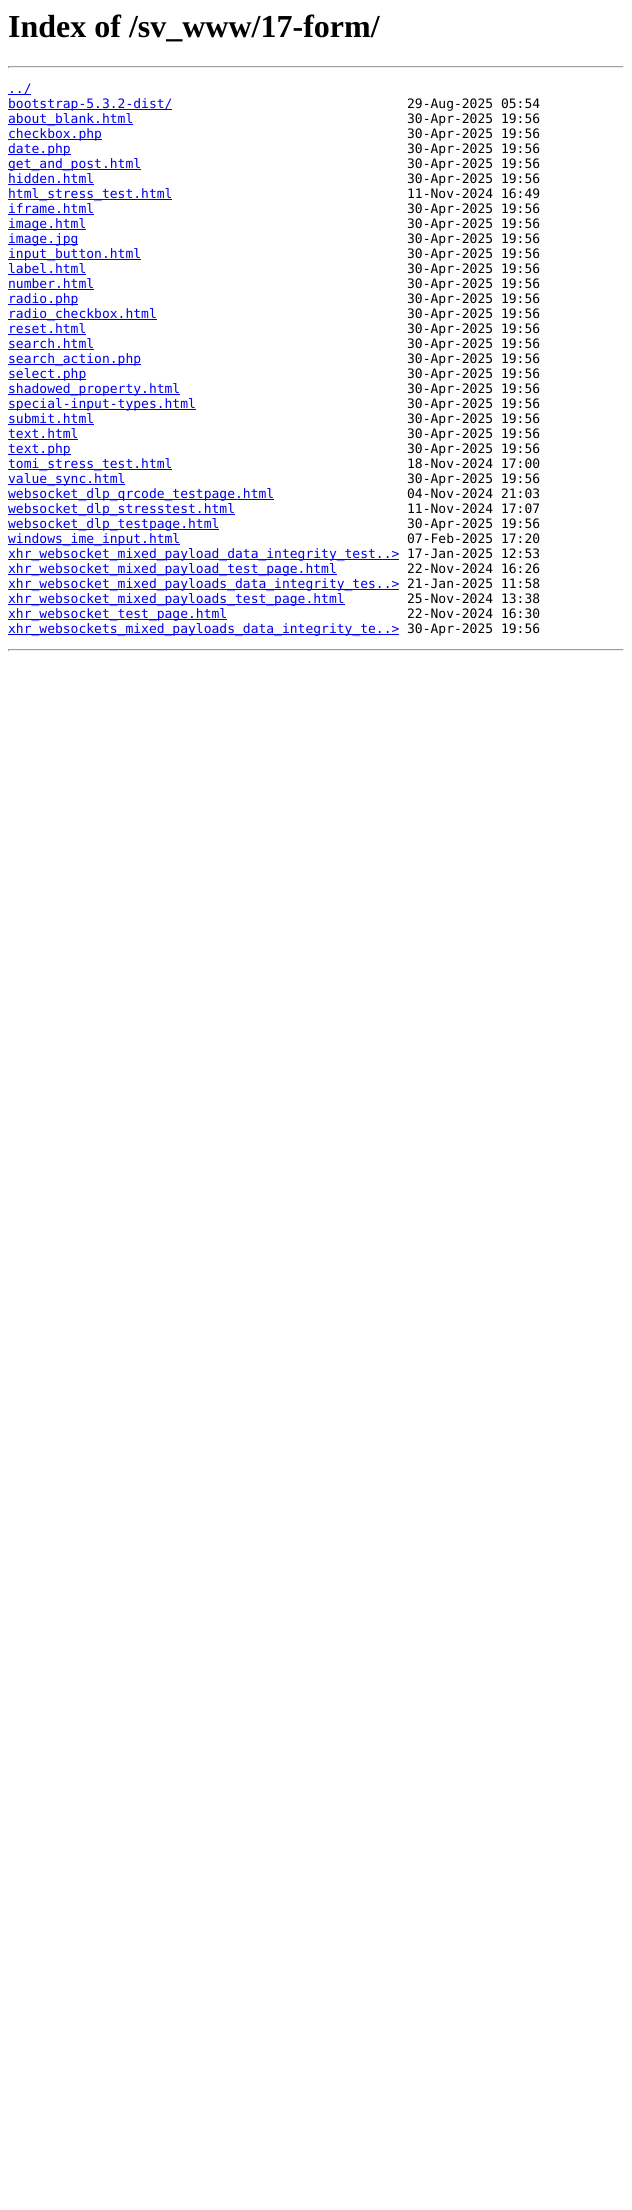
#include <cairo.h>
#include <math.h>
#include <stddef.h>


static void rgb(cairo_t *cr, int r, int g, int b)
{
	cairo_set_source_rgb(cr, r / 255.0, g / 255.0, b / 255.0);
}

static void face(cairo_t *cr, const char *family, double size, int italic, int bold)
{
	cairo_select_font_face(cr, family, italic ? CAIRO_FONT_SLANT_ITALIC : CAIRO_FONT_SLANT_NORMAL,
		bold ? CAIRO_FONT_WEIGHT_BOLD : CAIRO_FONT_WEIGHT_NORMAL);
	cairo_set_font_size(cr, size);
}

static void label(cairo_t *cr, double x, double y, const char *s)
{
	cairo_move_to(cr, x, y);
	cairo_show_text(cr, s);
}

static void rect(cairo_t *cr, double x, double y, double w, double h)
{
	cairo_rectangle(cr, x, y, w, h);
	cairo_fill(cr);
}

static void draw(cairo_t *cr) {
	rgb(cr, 255, 255, 255);
	cairo_paint(cr);
	face(cr, "Liberation Serif", 32, 0, 1);
	rgb(cr, 0, 0, 0);
	label(cr, 8, 37, "Index of /sv_www/17-form/");
	rgb(cr, 159, 159, 159);
	rect(cr, 8, 66, 616, 1);
	rgb(cr, 238, 238, 238);
	rect(cr, 623, 66, 1, 2);
	rect(cr, 8, 67, 616, 1);
	rgb(cr, 159, 159, 159);
	rect(cr, 8, 66, 1, 2);
	rgb(cr, 0, 0, 238);
	rect(cr, 8, 94, 23, 1);
	face(cr, "DejaVu Sans Mono", 13, 0, 0);
	label(cr, 8, 93, "../");
	rect(cr, 8, 109, 164, 1);
	label(cr, 8, 108, "bootstrap-5.3.2-dist/");
	rgb(cr, 0, 0, 0);
	label(cr, 407, 108, "29-Aug-2025 05:54");
	rgb(cr, 0, 0, 238);
	rect(cr, 8, 124, 125, 1);
	label(cr, 8, 123, "about_blank.html");
	rgb(cr, 0, 0, 0);
	label(cr, 407, 123, "30-Apr-2025 19:56");
	rgb(cr, 0, 0, 238);
	rect(cr, 8, 139, 94, 1);
	label(cr, 8, 138, "checkbox.php");
	rgb(cr, 0, 0, 0);
	label(cr, 407, 138, "30-Apr-2025 19:56");
	rgb(cr, 0, 0, 238);
	rect(cr, 8, 154, 63, 1);
	label(cr, 8, 153, "date.php");
	rgb(cr, 0, 0, 0);
	label(cr, 407, 153, "30-Apr-2025 19:56");
	rgb(cr, 0, 0, 238);
	rect(cr, 8, 169, 133, 1);
	label(cr, 8, 168, "get_and_post.html");
	rgb(cr, 0, 0, 0);
	label(cr, 407, 168, "30-Apr-2025 19:56");
	rgb(cr, 0, 0, 238);
	label(cr, 8, 183, "hidden.html");
	rect(cr, 8, 184, 86, 1);
	rgb(cr, 0, 0, 0);
	label(cr, 407, 183, "30-Apr-2025 19:56");
	rgb(cr, 0, 0, 238);
	rect(cr, 8, 199, 164, 1);
	label(cr, 8, 198, "html_stress_test.html");
	rgb(cr, 0, 0, 0);
	label(cr, 407, 198, "11-Nov-2024 16:49");
	rgb(cr, 0, 0, 238);
	label(cr, 8, 213, "iframe.html");
	rect(cr, 8, 214, 86, 1);
	rgb(cr, 0, 0, 0);
	label(cr, 407, 213, "30-Apr-2025 19:56");
	rgb(cr, 0, 0, 238);
	rect(cr, 8, 229, 78, 1);
	label(cr, 8, 228, "image.html");
	rgb(cr, 0, 0, 0);
	label(cr, 407, 228, "30-Apr-2025 19:56");
	rgb(cr, 0, 0, 238);
	rect(cr, 8, 244, 70, 1);
	label(cr, 8, 243, "image.jpg");
	rgb(cr, 0, 0, 0);
	label(cr, 407, 243, "30-Apr-2025 19:56");
	rgb(cr, 0, 0, 238);
	rect(cr, 8, 259, 133, 1);
	label(cr, 8, 258, "input_button.html");
	rgb(cr, 0, 0, 0);
	label(cr, 407, 258, "30-Apr-2025 19:56");
	rgb(cr, 0, 0, 238);
	label(cr, 8, 273, "label.html");
	rect(cr, 8, 274, 78, 1);
	rgb(cr, 0, 0, 0);
	label(cr, 407, 273, "30-Apr-2025 19:56");
	rgb(cr, 0, 0, 238);
	label(cr, 8, 288, "number.html");
	rect(cr, 8, 289, 86, 1);
	rgb(cr, 0, 0, 0);
	label(cr, 407, 288, "30-Apr-2025 19:56");
	rgb(cr, 0, 0, 238);
	rect(cr, 8, 304, 70, 1);
	label(cr, 8, 303, "radio.php");
	rgb(cr, 0, 0, 0);
	label(cr, 407, 303, "30-Apr-2025 19:56");
	rgb(cr, 0, 0, 238);
	rect(cr, 8, 319, 149, 1);
	label(cr, 8, 318, "radio_checkbox.html");
	rgb(cr, 0, 0, 0);
	label(cr, 407, 318, "30-Apr-2025 19:56");
	rgb(cr, 0, 0, 238);
	label(cr, 8, 333, "reset.html");
	rect(cr, 8, 334, 78, 1);
	rgb(cr, 0, 0, 0);
	label(cr, 407, 333, "30-Apr-2025 19:56");
	rgb(cr, 0, 0, 238);
	label(cr, 8, 348, "search.html");
	rect(cr, 8, 349, 86, 1);
	rgb(cr, 0, 0, 0);
	label(cr, 407, 348, "30-Apr-2025 19:56");
	rgb(cr, 0, 0, 238);
	rect(cr, 8, 364, 133, 1);
	label(cr, 8, 363, "search_action.php");
	rgb(cr, 0, 0, 0);
	label(cr, 407, 363, "30-Apr-2025 19:56");
	rgb(cr, 0, 0, 238);
	rect(cr, 8, 379, 78, 1);
	label(cr, 8, 378, "select.php");
	rgb(cr, 0, 0, 0);
	label(cr, 407, 378, "30-Apr-2025 19:56");
	rgb(cr, 0, 0, 238);
	rect(cr, 8, 394, 172, 1);
	label(cr, 8, 393, "shadowed_property.html");
	rgb(cr, 0, 0, 0);
	label(cr, 407, 393, "30-Apr-2025 19:56");
	rgb(cr, 0, 0, 238);
	rect(cr, 8, 409, 188, 1);
	label(cr, 8, 408, "special-input-types.html");
	rgb(cr, 0, 0, 0);
	label(cr, 407, 408, "30-Apr-2025 19:56");
	rgb(cr, 0, 0, 238);
	label(cr, 8, 423, "submit.html");
	rect(cr, 8, 424, 86, 1);
	rgb(cr, 0, 0, 0);
	label(cr, 407, 423, "30-Apr-2025 19:56");
	rgb(cr, 0, 0, 238);
	label(cr, 8, 438, "text.html");
	rect(cr, 8, 439, 70, 1);
	rgb(cr, 0, 0, 0);
	label(cr, 407, 438, "30-Apr-2025 19:56");
	rgb(cr, 0, 0, 238);
	rect(cr, 8, 454, 63, 1);
	label(cr, 8, 453, "text.php");
	rgb(cr, 0, 0, 0);
	label(cr, 407, 453, "30-Apr-2025 19:56");
	rgb(cr, 0, 0, 238);
	rect(cr, 8, 469, 164, 1);
	label(cr, 8, 468, "tomi_stress_test.html");
	rgb(cr, 0, 0, 0);
	label(cr, 407, 468, "18-Nov-2024 17:00");
	rgb(cr, 0, 0, 238);
	rect(cr, 8, 484, 117, 1);
	label(cr, 8, 483, "value_sync.html");
	rgb(cr, 0, 0, 0);
	label(cr, 407, 483, "30-Apr-2025 19:56");
	rgb(cr, 0, 0, 238);
	rect(cr, 8, 499, 266, 1);
	label(cr, 8, 498, "websocket_dlp_qrcode_testpage.html");
	rgb(cr, 0, 0, 0);
	label(cr, 407, 498, "04-Nov-2024 21:03");
	rgb(cr, 0, 0, 238);
	rect(cr, 8, 514, 227, 1);
	label(cr, 8, 513, "websocket_dlp_stresstest.html");
	rgb(cr, 0, 0, 0);
	label(cr, 407, 513, "11-Nov-2024 17:07");
	rgb(cr, 0, 0, 238);
	rect(cr, 8, 529, 211, 1);
	label(cr, 8, 528, "websocket_dlp_testpage.html");
	rgb(cr, 0, 0, 0);
	label(cr, 407, 528, "30-Apr-2025 19:56");
	rgb(cr, 0, 0, 238);
	rect(cr, 8, 544, 172, 1);
	label(cr, 8, 543, "windows_ime_input.html");
	rgb(cr, 0, 0, 0);
	label(cr, 407, 543, "07-Feb-2025 17:20");
	rgb(cr, 0, 0, 238);
	rect(cr, 8, 559, 391, 1);
	label(cr, 8, 558, "xhr_websocket_mixed_payload_data_integrity_test..>");
	rgb(cr, 0, 0, 0);
	label(cr, 407, 558, "17-Jan-2025 12:53");
	rgb(cr, 0, 0, 238);
	rect(cr, 8, 574, 329, 1);
	label(cr, 8, 573, "xhr_websocket_mixed_payload_test_page.html");
	rgb(cr, 0, 0, 0);
	label(cr, 407, 573, "22-Nov-2024 16:26");
	rgb(cr, 0, 0, 238);
	rect(cr, 8, 589, 391, 1);
	label(cr, 8, 588, "xhr_websocket_mixed_payloads_data_integrity_tes..>");
	rgb(cr, 0, 0, 0);
	label(cr, 407, 588, "21-Jan-2025 11:58");
	rgb(cr, 0, 0, 238);
	rect(cr, 8, 604, 337, 1);
	label(cr, 8, 603, "xhr_websocket_mixed_payloads_test_page.html");
	rgb(cr, 0, 0, 0);
	label(cr, 407, 603, "25-Nov-2024 13:38");
	rgb(cr, 0, 0, 238);
	rect(cr, 8, 619, 219, 1);
	label(cr, 8, 618, "xhr_websocket_test_page.html");
	rgb(cr, 0, 0, 0);
	label(cr, 407, 618, "22-Nov-2024 16:30");
	rgb(cr, 0, 0, 238);
	rect(cr, 8, 634, 391, 1);
	label(cr, 8, 633, "xhr_websockets_mixed_payloads_data_integrity_te..>");
	rgb(cr, 0, 0, 0);
	label(cr, 407, 633, "30-Apr-2025 19:56");
	rgb(cr, 159, 159, 159);
	rect(cr, 8, 649, 616, 1);
	rgb(cr, 238, 238, 238);
	rect(cr, 623, 649, 1, 2);
	rect(cr, 8, 650, 616, 1);
	rgb(cr, 159, 159, 159);
	rect(cr, 8, 649, 1, 2);
}

int main(void) {
	cairo_surface_t *surface = cairo_image_surface_create(CAIRO_FORMAT_RGB24, 632, 2210);
	cairo_t *cr = cairo_create(surface);
	cairo_font_options_t *options = cairo_font_options_create();
	cairo_font_options_set_hint_metrics(options, CAIRO_HINT_METRICS_OFF);
	cairo_font_options_set_hint_style(options, CAIRO_HINT_STYLE_NONE);
	cairo_set_font_options(cr, options);
	cairo_set_miter_limit(cr, 4);
	draw(cr);
	cairo_surface_write_to_png(surface, "render.png");
	cairo_font_options_destroy(options);
	cairo_destroy(cr);
	cairo_surface_destroy(surface);
	return 0;
}
